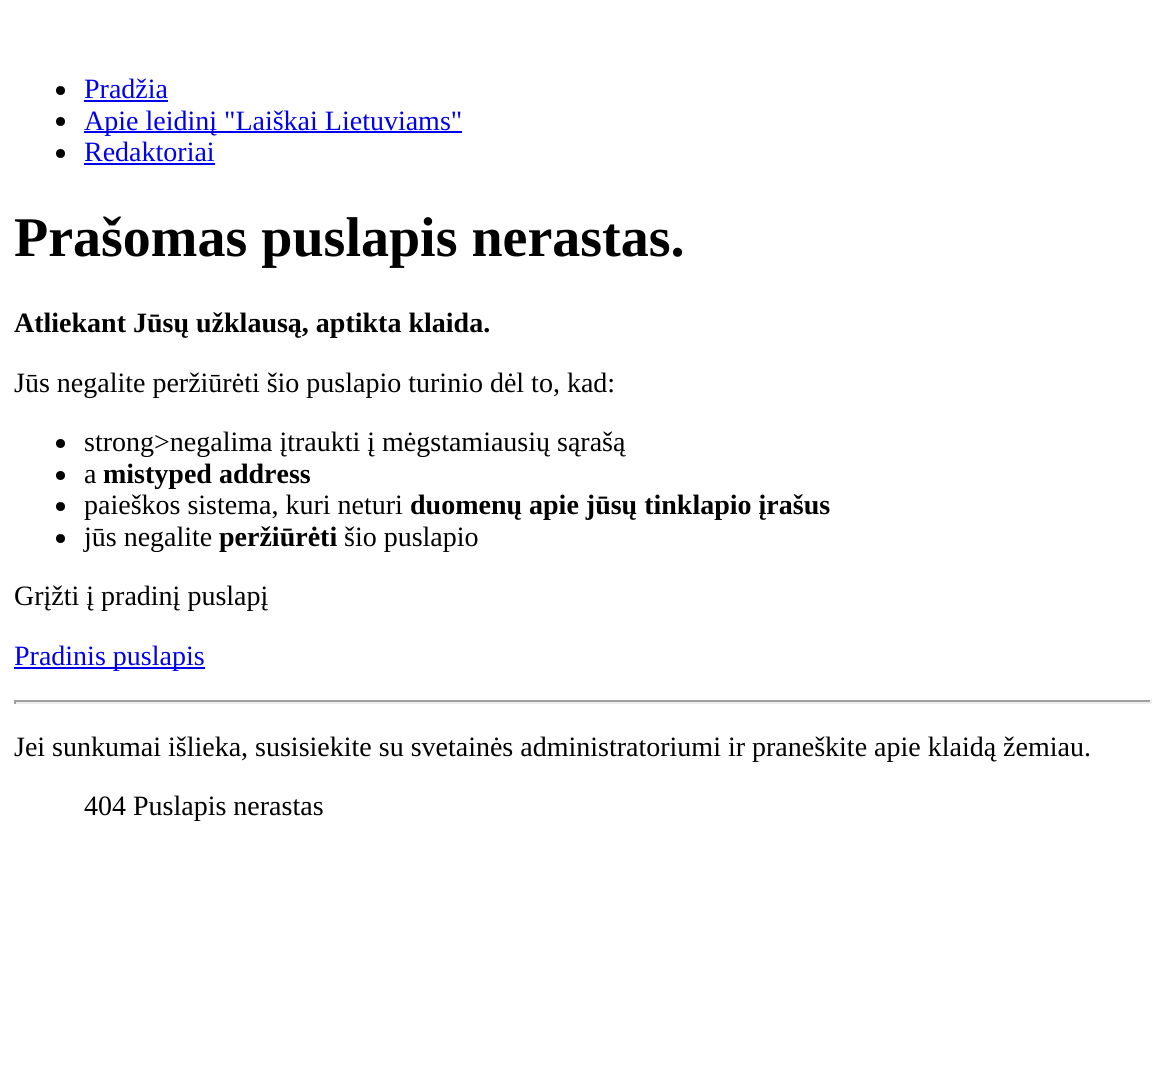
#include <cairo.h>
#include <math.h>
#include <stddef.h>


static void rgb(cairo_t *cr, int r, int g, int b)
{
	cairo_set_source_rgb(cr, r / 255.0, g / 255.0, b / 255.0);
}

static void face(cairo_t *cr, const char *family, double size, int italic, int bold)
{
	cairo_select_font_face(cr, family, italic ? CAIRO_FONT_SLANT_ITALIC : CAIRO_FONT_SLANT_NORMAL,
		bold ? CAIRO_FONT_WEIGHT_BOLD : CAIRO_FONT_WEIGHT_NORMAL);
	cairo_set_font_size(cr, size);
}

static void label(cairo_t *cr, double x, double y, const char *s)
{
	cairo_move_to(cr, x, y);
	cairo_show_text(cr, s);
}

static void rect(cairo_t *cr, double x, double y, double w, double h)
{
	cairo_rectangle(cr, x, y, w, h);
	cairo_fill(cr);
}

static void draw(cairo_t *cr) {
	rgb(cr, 255, 255, 255);
	cairo_paint(cr);
	rgb(cr, 0, 0, 0);
	cairo_arc(cr, 60.5, 90.5, 4.5, 0, 2 * M_PI);
	cairo_fill(cr);
	face(cr, "Liberation Serif", 28, 0, 0);
	rgb(cr, 0, 0, 238);
	label(cr, 84, 98, "Pradžia");
	rect(cr, 84, 100, 84, 2);
	rgb(cr, 0, 0, 0);
	cairo_new_path(cr);
	cairo_arc(cr, 60.5, 121.5, 4.5, 0, 2 * M_PI);
	cairo_fill(cr);
	rgb(cr, 0, 0, 238);
	rect(cr, 84, 131, 378, 2);
	label(cr, 84, 130, "Apie leidinį \"Laiškai Lietuviams\"");
	rgb(cr, 0, 0, 0);
	cairo_new_path(cr);
	cairo_arc(cr, 60.5, 153.5, 4.5, 0, 2 * M_PI);
	cairo_fill(cr);
	rgb(cr, 0, 0, 238);
	label(cr, 84, 161, "Redaktoriai");
	rect(cr, 84, 163, 131, 2);
	face(cr, "Liberation Serif", 56, 0, 1);
	rgb(cr, 0, 0, 0);
	label(cr, 14, 256, "Prašomas puslapis nerastas.");
	face(cr, "Liberation Serif", 28, 0, 1);
	label(cr, 14, 332, "Atliekant Jūsų užklausą, aptikta klaida.");
	face(cr, "Liberation Serif", 28, 0, 0);
	label(cr, 14, 392, "Jūs negalite peržiūrėti šio puslapio turinio dėl to, kad:");
	cairo_new_path(cr);
	cairo_arc(cr, 60.5, 443.5, 4.5, 0, 2 * M_PI);
	cairo_fill(cr);
	label(cr, 84, 451, "strong>negalima įtraukti į mėgstamiausių sąrašą");
	cairo_new_path(cr);
	cairo_arc(cr, 60.5, 475.5, 4.5, 0, 2 * M_PI);
	cairo_fill(cr);
	label(cr, 84, 483, "a");
	face(cr, "Liberation Serif", 28, 0, 1);
	label(cr, 103, 483, "mistyped address");
	cairo_new_path(cr);
	cairo_arc(cr, 60.5, 506.5, 4.5, 0, 2 * M_PI);
	cairo_fill(cr);
	face(cr, "Liberation Serif", 28, 0, 0);
	label(cr, 84, 514, "paieškos sistema, kuri neturi");
	face(cr, "Liberation Serif", 28, 0, 1);
	label(cr, 410, 514, "duomenų apie jūsų tinklapio įrašus");
	cairo_new_path(cr);
	cairo_arc(cr, 60.5, 538.5, 4.5, 0, 2 * M_PI);
	cairo_fill(cr);
	face(cr, "Liberation Serif", 28, 0, 0);
	label(cr, 84, 546, "jūs negalite");
	face(cr, "Liberation Serif", 28, 0, 1);
	label(cr, 219, 546, "peržiūrėti");
	face(cr, "Liberation Serif", 28, 0, 0);
	label(cr, 344, 546, "šio puslapio");
	label(cr, 14, 605, "Grįžti į pradinį puslapį");
	rgb(cr, 0, 0, 238);
	rect(cr, 14, 667, 191, 2);
	label(cr, 14, 665, "Pradinis puslapis");
	rgb(cr, 159, 159, 159);
	rect(cr, 14, 700, 1138, 2);
	rgb(cr, 238, 238, 238);
	rect(cr, 1150, 700, 2, 4);
	rect(cr, 14, 702, 1138, 2);
	rgb(cr, 159, 159, 159);
	rect(cr, 14, 700, 2, 4);
	rgb(cr, 0, 0, 0);
	label(cr, 14, 756, "Jei sunkumai išlieka, susisiekite su svetainės administratoriumi ir praneškite apie klaidą žemiau.");
	label(cr, 84, 815, "404 Puslapis nerastas");
}

int main(void) {
	cairo_surface_t *surface = cairo_image_surface_create(CAIRO_FORMAT_RGB24, 1164, 1065);
	cairo_t *cr = cairo_create(surface);
	cairo_font_options_t *options = cairo_font_options_create();
	cairo_font_options_set_hint_metrics(options, CAIRO_HINT_METRICS_OFF);
	cairo_font_options_set_hint_style(options, CAIRO_HINT_STYLE_NONE);
	cairo_set_font_options(cr, options);
	cairo_set_miter_limit(cr, 4);
	draw(cr);
	cairo_surface_write_to_png(surface, "render.png");
	cairo_font_options_destroy(options);
	cairo_destroy(cr);
	cairo_surface_destroy(surface);
	return 0;
}
